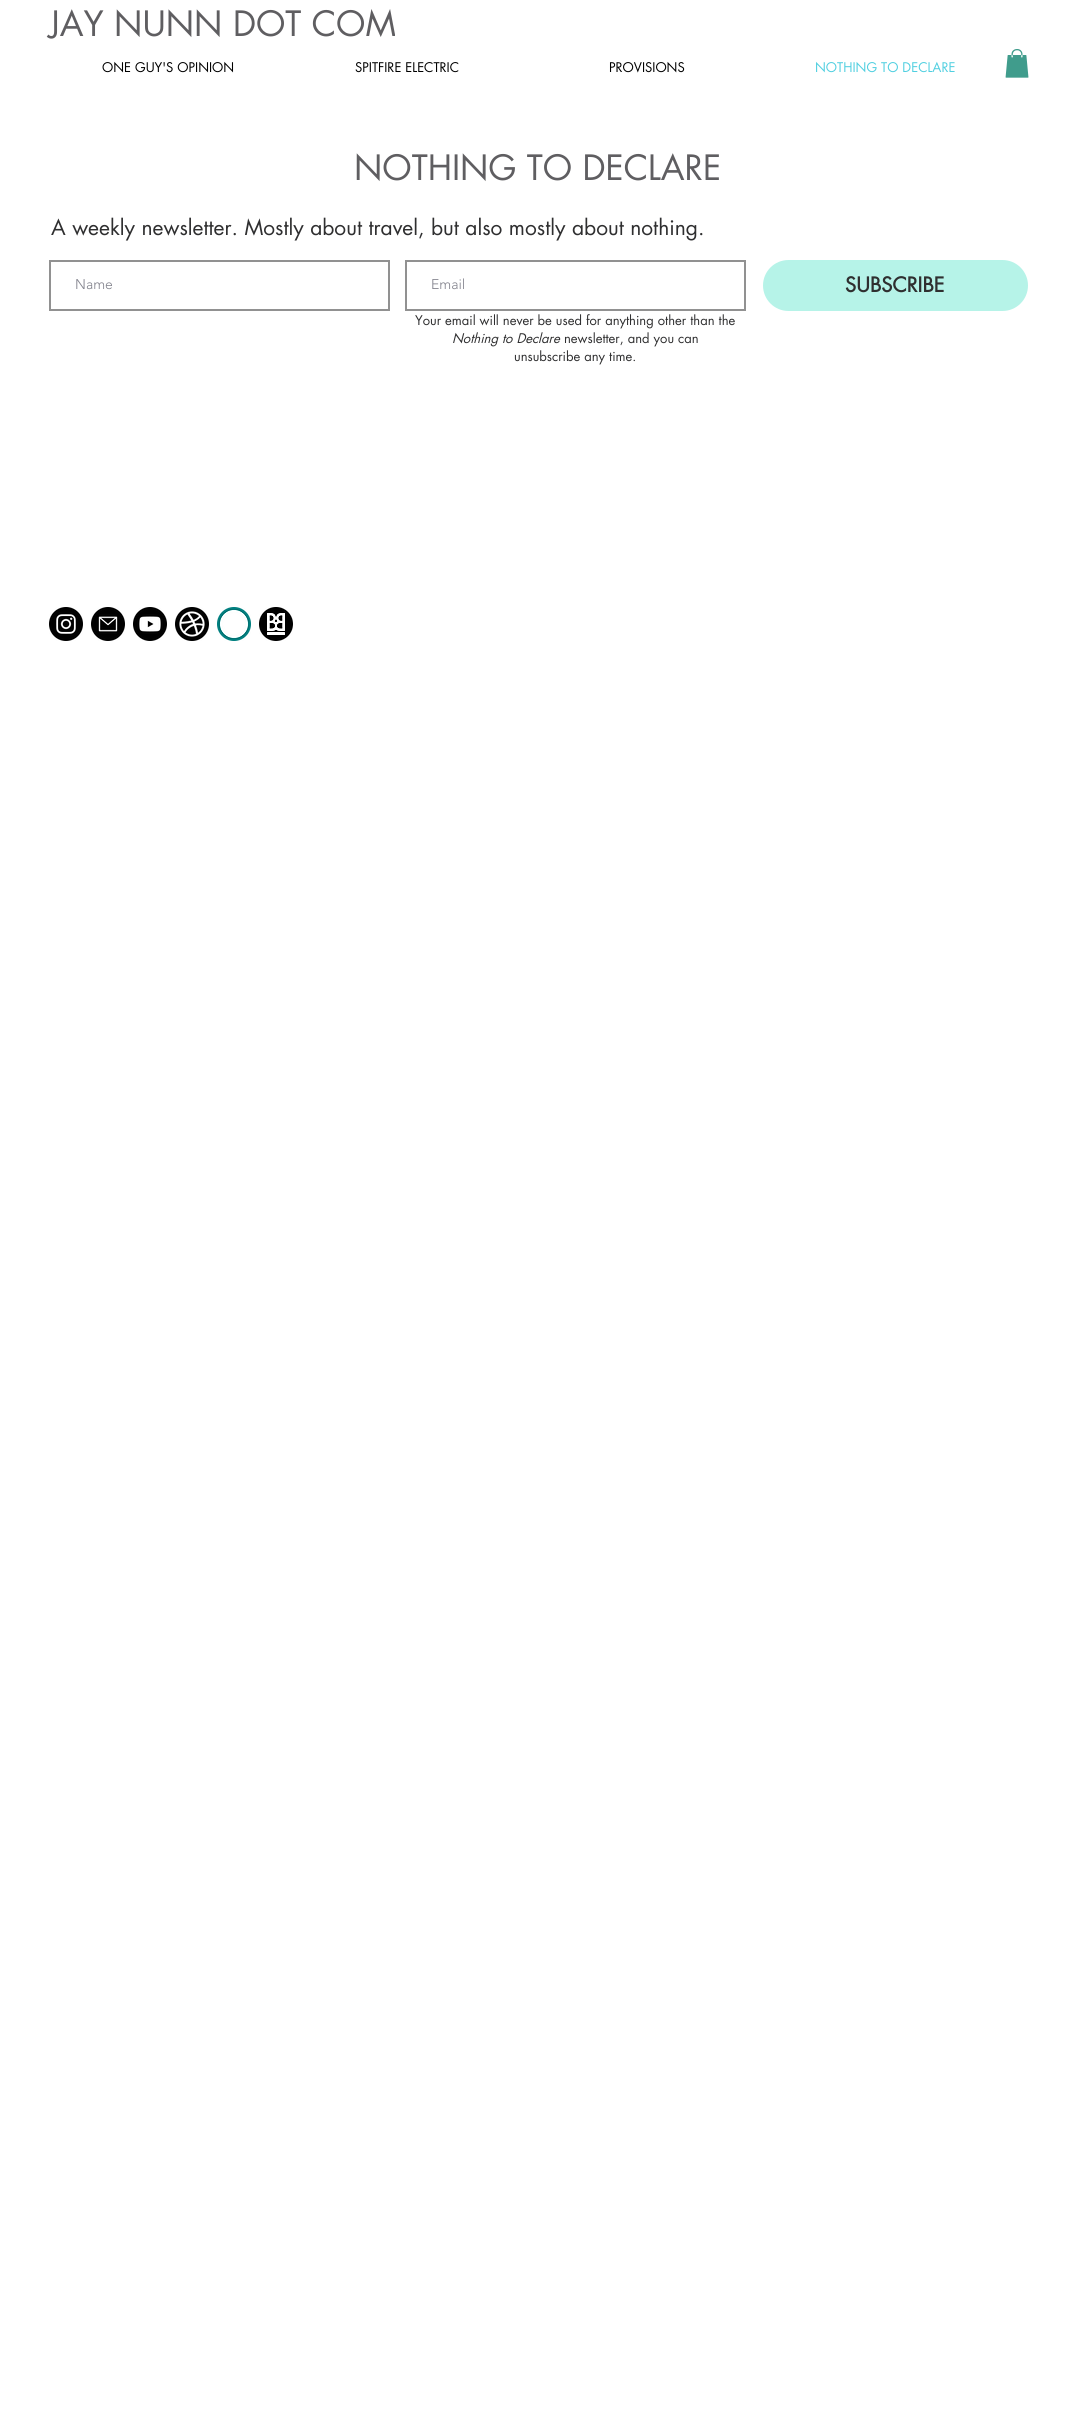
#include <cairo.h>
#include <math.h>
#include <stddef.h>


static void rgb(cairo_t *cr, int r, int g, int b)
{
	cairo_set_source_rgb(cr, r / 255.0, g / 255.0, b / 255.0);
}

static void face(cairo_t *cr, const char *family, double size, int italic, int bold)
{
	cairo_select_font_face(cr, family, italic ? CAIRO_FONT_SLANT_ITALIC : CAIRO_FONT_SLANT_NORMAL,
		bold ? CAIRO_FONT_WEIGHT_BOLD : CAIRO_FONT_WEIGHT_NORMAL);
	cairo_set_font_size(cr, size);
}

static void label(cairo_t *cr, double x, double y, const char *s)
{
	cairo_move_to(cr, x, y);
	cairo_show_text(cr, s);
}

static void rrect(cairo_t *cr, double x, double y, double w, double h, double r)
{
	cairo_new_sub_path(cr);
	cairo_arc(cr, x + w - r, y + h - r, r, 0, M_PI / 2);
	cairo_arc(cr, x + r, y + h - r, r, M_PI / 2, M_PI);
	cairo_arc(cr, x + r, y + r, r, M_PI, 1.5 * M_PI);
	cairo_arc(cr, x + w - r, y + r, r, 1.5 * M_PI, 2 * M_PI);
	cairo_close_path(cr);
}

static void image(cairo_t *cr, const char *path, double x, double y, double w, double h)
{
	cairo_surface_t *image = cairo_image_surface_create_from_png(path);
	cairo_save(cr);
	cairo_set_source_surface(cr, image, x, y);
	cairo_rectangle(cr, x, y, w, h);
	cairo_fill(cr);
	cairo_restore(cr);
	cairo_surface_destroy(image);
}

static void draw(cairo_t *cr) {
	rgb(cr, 255, 255, 255);
	cairo_paint(cr);
	face(cr, "futura", 34, 0, 0);
	rgb(cr, 95, 94, 97);
	label(cr, 49, 36, "JAY NUNN DOT COM");
	face(cr, "futura", 13, 0, 0);
	rgb(cr, 0, 0, 0);
	label(cr, 102, 72, "ONE GUY'S OPINION");
	label(cr, 355, 72, "SPITFIRE ELECTRIC");
	label(cr, 609, 72, "PROVISIONS");
	rgb(cr, 80, 207, 224);
	label(cr, 815, 72, "NOTHING TO DECLARE");
	image(cr, "image0.png", 1005, 49, 24, 29);
	face(cr, "futura", 34, 0, 0);
	rgb(cr, 95, 94, 97);
	label(cr, 354, 180, "NOTHING TO DECLARE");
	face(cr, "futura", 21, 0, 0);
	rgb(cr, 47, 47, 48);
	label(cr, 51, 235, "A weekly newsletter. Mostly about travel, but also mostly about nothing.");
	cairo_rectangle(cr, 50, 261, 339, 49);
	rgb(cr, 145, 145, 145);
	cairo_stroke(cr);
	face(cr, "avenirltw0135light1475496 Light", 14, 0, 0);
	rgb(cr, 127, 128, 138);
	label(cr, 75, 289, "Name");
	cairo_rectangle(cr, 406, 261, 339, 49);
	rgb(cr, 145, 145, 145);
	cairo_stroke(cr);
	rgb(cr, 127, 128, 138);
	label(cr, 431, 289, "Email");
	rgb(cr, 182, 243, 232);
	rrect(cr, 763, 260, 265, 51, 25.5);
	cairo_fill(cr);
	face(cr, "futura", 20, 0, 1);
	rgb(cr, 47, 47, 48);
	label(cr, 845, 292, "SUBSCRIBE");
	face(cr, "futura", 13, 0, 0);
	label(cr, 415, 325, "Your email will never be used for anything other than the");
	face(cr, "futura", 13, 1, 0);
	label(cr, 452, 343, "Nothing to Declare");
	face(cr, "futura", 13, 0, 0);
	label(cr, 564, 343, "newsletter, and you can");
	label(cr, 514, 361, "unsubscribe any time.");
	image(cr, "image1.png", 49, 607, 34, 34);
	image(cr, "image2.png", 91, 607, 34, 34);
	image(cr, "image3.png", 133, 607, 34, 34);
	image(cr, "image4.png", 175, 607, 34, 34);
	image(cr, "image5.png", 217, 607, 34, 34);
	image(cr, "image6.png", 259, 607, 34, 34);
}

int main(void) {
	cairo_surface_t *surface = cairo_image_surface_create(CAIRO_FORMAT_RGB24, 1077, 2415);
	cairo_t *cr = cairo_create(surface);
	cairo_font_options_t *options = cairo_font_options_create();
	cairo_font_options_set_hint_metrics(options, CAIRO_HINT_METRICS_OFF);
	cairo_font_options_set_hint_style(options, CAIRO_HINT_STYLE_NONE);
	cairo_set_font_options(cr, options);
	cairo_set_miter_limit(cr, 4);
	draw(cr);
	cairo_surface_write_to_png(surface, "render.png");
	cairo_font_options_destroy(options);
	cairo_destroy(cr);
	cairo_surface_destroy(surface);
	return 0;
}
